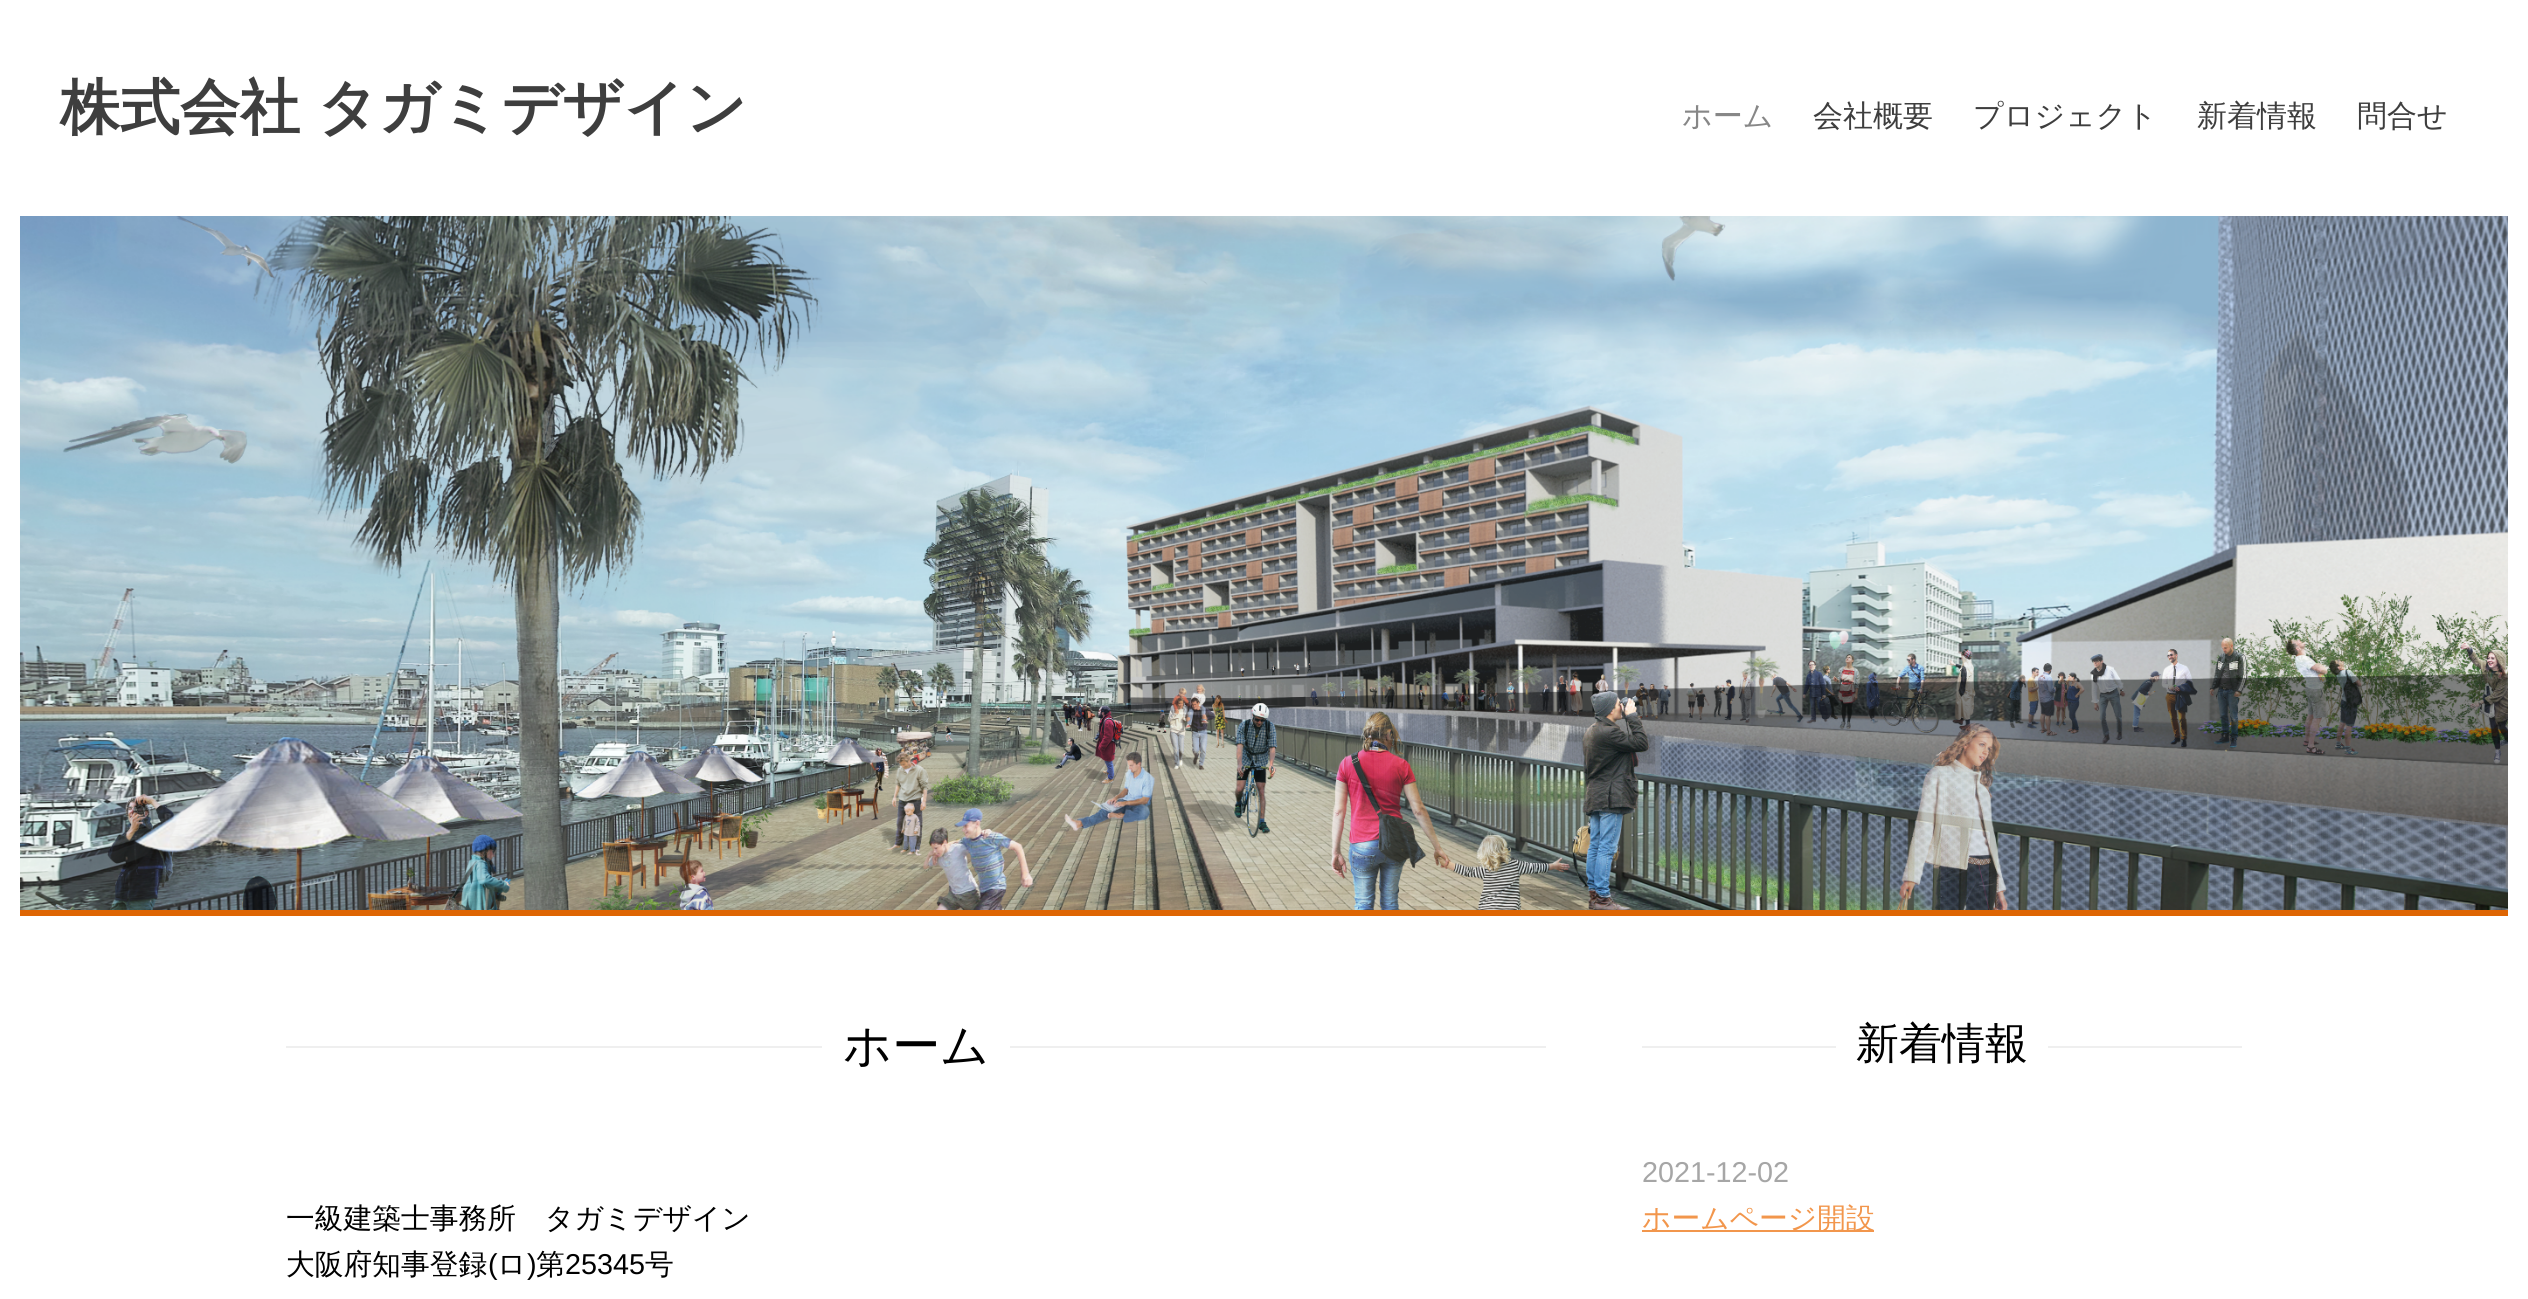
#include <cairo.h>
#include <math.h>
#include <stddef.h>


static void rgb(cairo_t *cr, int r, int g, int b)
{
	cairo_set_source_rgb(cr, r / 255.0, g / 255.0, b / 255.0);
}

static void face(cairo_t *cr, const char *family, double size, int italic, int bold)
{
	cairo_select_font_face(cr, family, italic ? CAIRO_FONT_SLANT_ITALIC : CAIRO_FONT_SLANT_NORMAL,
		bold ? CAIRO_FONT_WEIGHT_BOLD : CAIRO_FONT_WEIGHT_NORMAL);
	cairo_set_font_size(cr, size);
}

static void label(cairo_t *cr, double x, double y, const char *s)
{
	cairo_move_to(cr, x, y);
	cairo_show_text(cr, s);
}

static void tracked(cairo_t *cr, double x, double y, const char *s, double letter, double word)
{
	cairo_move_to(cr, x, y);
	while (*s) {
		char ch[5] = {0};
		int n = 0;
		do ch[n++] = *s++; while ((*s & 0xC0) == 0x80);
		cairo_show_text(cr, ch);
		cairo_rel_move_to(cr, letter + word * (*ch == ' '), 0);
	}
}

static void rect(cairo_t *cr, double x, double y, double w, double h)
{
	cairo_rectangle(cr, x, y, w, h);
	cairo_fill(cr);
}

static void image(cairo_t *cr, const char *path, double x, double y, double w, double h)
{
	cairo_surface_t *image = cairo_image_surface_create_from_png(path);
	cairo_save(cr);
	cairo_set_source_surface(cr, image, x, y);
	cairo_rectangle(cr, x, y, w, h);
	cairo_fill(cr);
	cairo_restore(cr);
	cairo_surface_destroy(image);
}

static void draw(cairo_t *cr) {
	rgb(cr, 255, 255, 255);
	cairo_paint(cr);
	face(cr, "WenQuanYi Zen Hei", 60, 0, 1);
	rgb(cr, 62, 62, 62);
	tracked(cr, 60, 128, "株式会社 タガミデザイン", 0, -1);
	face(cr, "WenQuanYi Zen Hei Medium", 30, 0, 0);
	rgb(cr, 135, 135, 135);
	label(cr, 1682, 126, "ホーム");
	rgb(cr, 62, 62, 62);
	label(cr, 1813, 126, "会社概要");
	label(cr, 1973, 126, "プロジェクト");
	label(cr, 2197, 126, "新着情報");
	label(cr, 2357, 126, "問合せ");
	image(cr, "image0.png", 20, 216, 2488, 694);
	rgb(cr, 222, 101, 3);
	rect(cr, 20, 910, 2488, 6);
	rgb(cr, 239, 239, 239);
	rect(cr, 286, 1046, 1260, 2);
	rgb(cr, 255, 255, 255);
	rect(cr, 822, 1046, 188, 2);
	face(cr, "WenQuanYi Zen Hei Medium", 48, 0, 0);
	rgb(cr, 0, 0, 0);
	label(cr, 843, 1062, "ホーム");
	face(cr, "WenQuanYi Zen Hei Medium", 28.75, 0, 0);
	label(cr, 286, 1228, "一級建築士事務所　タガミデザイン");
	label(cr, 286, 1274, "大阪府知事登録");
	face(cr, "Liberation Sans", 28.75, 0, 0);
	label(cr, 488, 1274, "(");
	face(cr, "WenQuanYi Zen Hei Medium", 28.75, 0, 0);
	label(cr, 497, 1274, "ロ");
	face(cr, "Liberation Sans", 28.75, 0, 0);
	label(cr, 527, 1274, ")");
	face(cr, "WenQuanYi Zen Hei Medium", 28.75, 0, 0);
	label(cr, 536, 1274, "第");
	face(cr, "Liberation Sans", 28.75, 0, 0);
	label(cr, 565, 1274, "25345");
	face(cr, "WenQuanYi Zen Hei Medium", 28.75, 0, 0);
	label(cr, 645, 1274, "号");
	rgb(cr, 239, 239, 239);
	rect(cr, 1642, 1046, 600, 2);
	rgb(cr, 255, 255, 255);
	rect(cr, 1836, 1046, 212, 2);
	face(cr, "WenQuanYi Zen Hei Medium", 43, 0, 0);
	rgb(cr, 0, 0, 0);
	label(cr, 1856, 1058, "新着情報");
	face(cr, "Liberation Sans", 28.75, 0, 0);
	rgb(cr, 166, 166, 166);
	label(cr, 1642, 1182, "2021-12-02");
	rgb(cr, 242, 150, 76);
	rect(cr, 1642, 1230, 232, 2);
	face(cr, "WenQuanYi Zen Hei Medium", 28.75, 0, 0);
	label(cr, 1642, 1228, "ホームページ開設");
}

int main(void) {
	cairo_surface_t *surface = cairo_image_surface_create(CAIRO_FORMAT_RGB24, 2528, 1299);
	cairo_t *cr = cairo_create(surface);
	cairo_font_options_t *options = cairo_font_options_create();
	cairo_font_options_set_hint_metrics(options, CAIRO_HINT_METRICS_OFF);
	cairo_font_options_set_hint_style(options, CAIRO_HINT_STYLE_NONE);
	cairo_set_font_options(cr, options);
	cairo_set_miter_limit(cr, 4);
	draw(cr);
	cairo_surface_write_to_png(surface, "render.png");
	cairo_font_options_destroy(options);
	cairo_destroy(cr);
	cairo_surface_destroy(surface);
	return 0;
}
